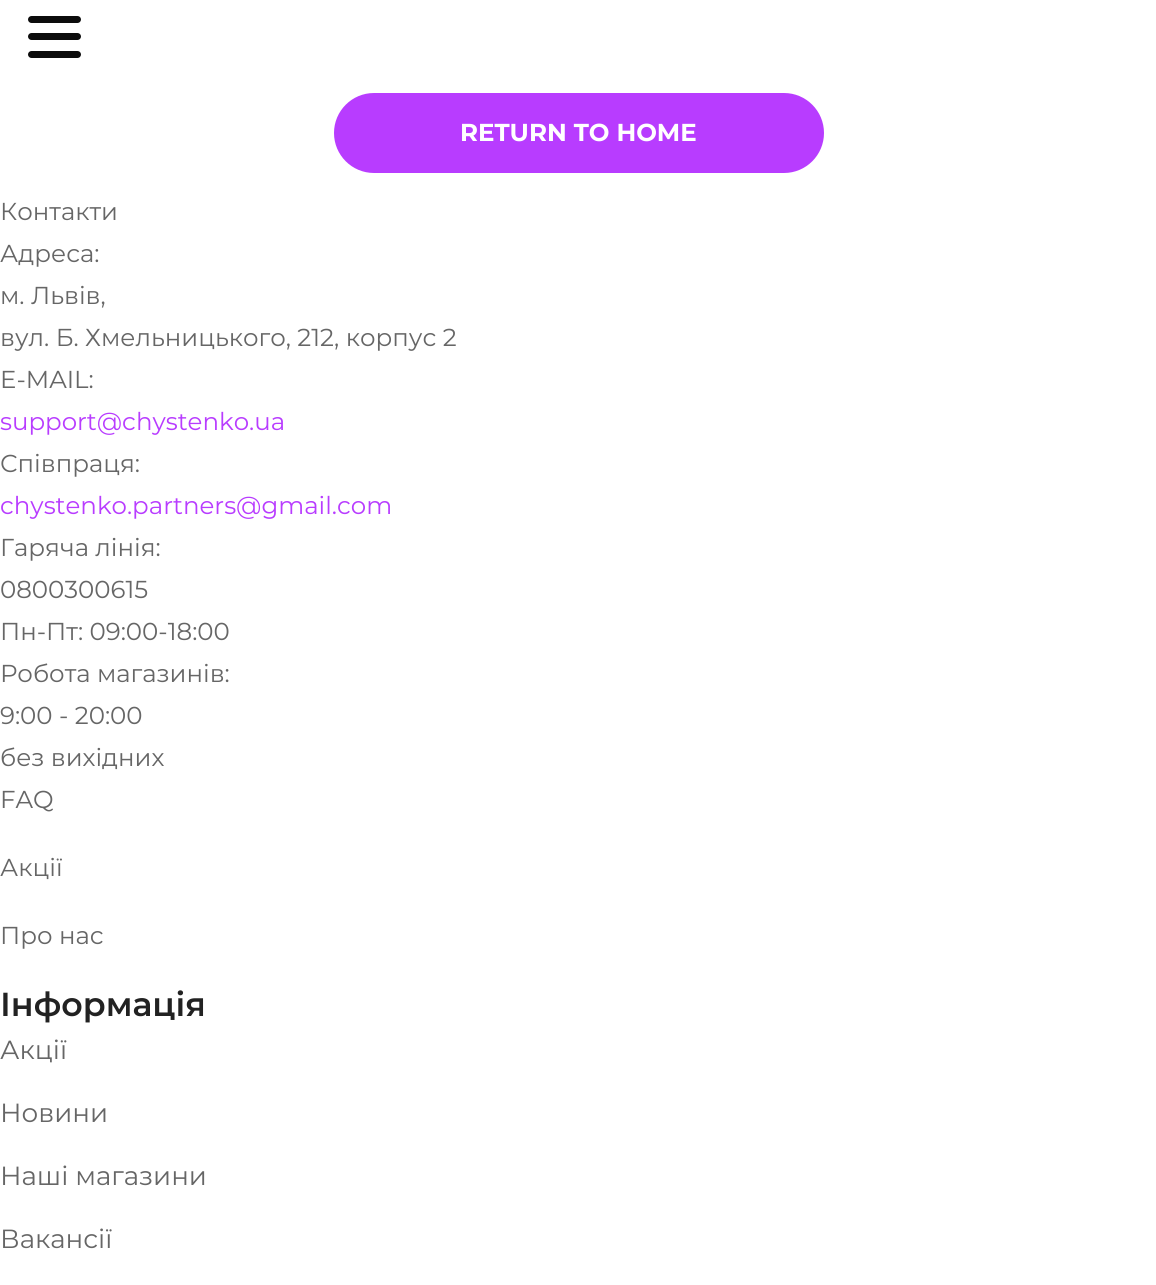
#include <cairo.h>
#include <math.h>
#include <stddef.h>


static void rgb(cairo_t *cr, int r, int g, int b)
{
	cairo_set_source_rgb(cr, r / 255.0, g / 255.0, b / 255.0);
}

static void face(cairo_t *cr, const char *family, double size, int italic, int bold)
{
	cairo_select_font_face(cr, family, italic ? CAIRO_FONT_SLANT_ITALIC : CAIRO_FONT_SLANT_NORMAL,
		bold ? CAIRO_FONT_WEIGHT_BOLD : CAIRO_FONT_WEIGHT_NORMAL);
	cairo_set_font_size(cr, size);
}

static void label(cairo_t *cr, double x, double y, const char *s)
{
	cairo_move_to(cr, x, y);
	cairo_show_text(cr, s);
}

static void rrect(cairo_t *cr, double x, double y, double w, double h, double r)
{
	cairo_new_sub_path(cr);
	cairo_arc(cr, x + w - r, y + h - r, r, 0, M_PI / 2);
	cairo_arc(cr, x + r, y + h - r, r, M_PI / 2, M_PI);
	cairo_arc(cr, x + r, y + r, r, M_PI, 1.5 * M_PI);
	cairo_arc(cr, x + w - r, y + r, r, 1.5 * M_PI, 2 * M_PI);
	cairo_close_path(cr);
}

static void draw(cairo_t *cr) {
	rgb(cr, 255, 255, 255);
	cairo_paint(cr);
	rgb(cr, 12, 12, 12);
	rrect(cr, 28, 16, 53, 7, 3.5);
	cairo_fill(cr);
	rrect(cr, 28, 33, 53, 7, 3.5);
	cairo_fill(cr);
	rrect(cr, 28, 51, 53, 7, 3.5);
	cairo_fill(cr);
	rgb(cr, 184, 60, 255);
	rrect(cr, 334, 93, 490, 80, 40);
	cairo_fill(cr);
	face(cr, "Montserrat", 24.5, 0, 1);
	rgb(cr, 255, 255, 255);
	label(cr, 460, 141, "RETURN TO HOME");
	face(cr, "Montserrat", 24.5, 0, 0);
	rgb(cr, 102, 102, 102);
	label(cr, 0, 220, "Контакти");
	label(cr, 0, 262, "Адреса:");
	label(cr, 0, 304, "м. Львів,");
	label(cr, 0, 346, "вул. Б. Хмельницького, 212, корпус 2");
	label(cr, 0, 388, "E-MAIL:");
	rgb(cr, 184, 60, 255);
	label(cr, 0, 430, "support@chystenko.ua");
	rgb(cr, 102, 102, 102);
	label(cr, 0, 472, "Співпраця:");
	rgb(cr, 184, 60, 255);
	label(cr, 0, 514, "chystenko.partners@gmail.com");
	rgb(cr, 102, 102, 102);
	label(cr, 0, 556, "Гаряча лінія:");
	label(cr, 0, 598, "0800300615");
	label(cr, 0, 640, "Пн-Пт: 09:00-18:00");
	label(cr, 0, 682, "Робота магазинів:");
	label(cr, 0, 724, "9:00 - 20:00");
	label(cr, 0, 766, "без вихідних");
	label(cr, 0, 808, "FAQ");
	label(cr, 0, 876, "Акції");
	label(cr, 0, 944, "Про нас");
	face(cr, "Montserrat SemiBold", 33.25, 0, 0);
	rgb(cr, 34, 34, 34);
	label(cr, 0, 1016, "Інформація");
	face(cr, "Montserrat", 26.25, 0, 0);
	rgb(cr, 102, 102, 102);
	label(cr, 0, 1059, "Акції");
	label(cr, 0, 1122, "Новини");
	label(cr, 0, 1185, "Наші магазини");
	label(cr, 0, 1248, "Вакансії");
}

int main(void) {
	cairo_surface_t *surface = cairo_image_surface_create(CAIRO_FORMAT_RGB24, 1156, 1285);
	cairo_t *cr = cairo_create(surface);
	cairo_font_options_t *options = cairo_font_options_create();
	cairo_font_options_set_hint_metrics(options, CAIRO_HINT_METRICS_OFF);
	cairo_font_options_set_hint_style(options, CAIRO_HINT_STYLE_NONE);
	cairo_set_font_options(cr, options);
	cairo_set_miter_limit(cr, 4);
	draw(cr);
	cairo_surface_write_to_png(surface, "render.png");
	cairo_font_options_destroy(options);
	cairo_destroy(cr);
	cairo_surface_destroy(surface);
	return 0;
}
